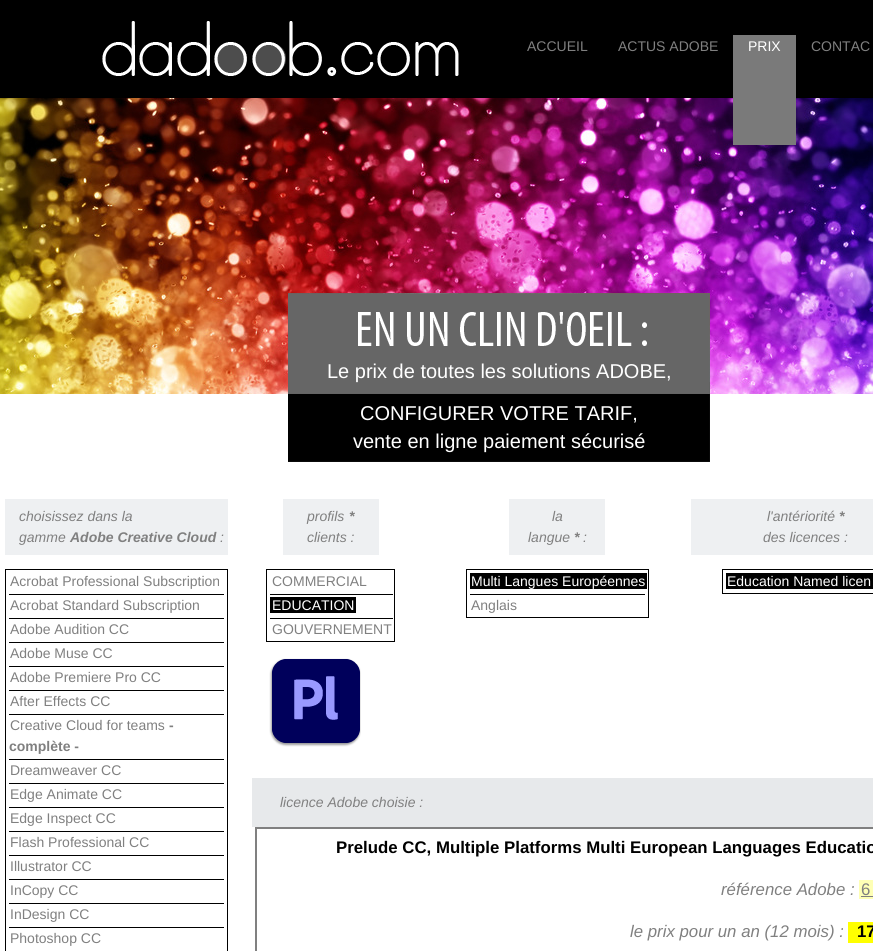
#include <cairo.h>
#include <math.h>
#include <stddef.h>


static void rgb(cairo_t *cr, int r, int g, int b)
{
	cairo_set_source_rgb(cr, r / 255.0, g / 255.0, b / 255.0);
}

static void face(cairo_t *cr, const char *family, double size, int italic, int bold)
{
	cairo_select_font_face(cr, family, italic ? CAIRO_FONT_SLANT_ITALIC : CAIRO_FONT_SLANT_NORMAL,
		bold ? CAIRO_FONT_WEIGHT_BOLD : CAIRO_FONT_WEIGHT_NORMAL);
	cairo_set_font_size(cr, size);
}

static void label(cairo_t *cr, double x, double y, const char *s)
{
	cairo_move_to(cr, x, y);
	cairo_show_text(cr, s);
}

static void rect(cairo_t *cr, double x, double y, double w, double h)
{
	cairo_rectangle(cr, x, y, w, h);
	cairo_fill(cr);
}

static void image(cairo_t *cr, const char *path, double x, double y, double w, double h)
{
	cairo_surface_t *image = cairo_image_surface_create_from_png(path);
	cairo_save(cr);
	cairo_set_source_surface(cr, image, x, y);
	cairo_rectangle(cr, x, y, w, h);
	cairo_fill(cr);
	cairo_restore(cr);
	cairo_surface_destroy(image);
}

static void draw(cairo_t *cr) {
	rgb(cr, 0, 0, 0);
	cairo_paint(cr);
	image(cr, "image0.png", 0, 98, 873, 296);
	image(cr, "image1.png", 102, 21, 357, 55);
	face(cr, "Liberation Sans", 14, 0, 0);
	rgb(cr, 128, 128, 128);
	label(cr, 527, 51, "ACCUEIL");
	label(cr, 618, 51, "ACTUS ADOBE");
	rgb(cr, 122, 122, 122);
	rect(cr, 733, 35, 63, 110);
	rgb(cr, 255, 255, 255);
	label(cr, 748, 51, "PRIX");
	rgb(cr, 128, 128, 128);
	label(cr, 811, 51, "CONTAC");
	rgb(cr, 255, 255, 255);
	rect(cr, 0, 394, 873, 557);
	image(cr, "image2.png", 288, 293, 422, 169);
	face(cr, "Liberation Sans", 20, 0, 0);
	label(cr, 327, 378, "Le prix de toutes les solutions ADOBE,");
	label(cr, 360, 420, "CONFIGURER VOTRE TARIF,");
	label(cr, 353, 448, "vente en ligne paiement sécurisé");
	rgb(cr, 238, 240, 242);
	rect(cr, 5, 499, 223, 56);
	face(cr, "Liberation Sans", 14, 1, 0);
	rgb(cr, 128, 128, 128);
	label(cr, 19, 521, "choisissez dans la");
	label(cr, 19, 542, "gamme");
	face(cr, "Liberation Sans", 14, 1, 1);
	label(cr, 70, 542, "Adobe Creative Cloud");
	face(cr, "Liberation Sans", 14, 1, 0);
	label(cr, 220, 542, ":");
	rgb(cr, 0, 0, 0);
	rect(cr, 5, 569, 223, 1);
	rect(cr, 227, 569, 1, 382);
	rect(cr, 5, 569, 1, 382);
	face(cr, "Liberation Sans", 14, 0, 0);
	rgb(cr, 128, 128, 128);
	label(cr, 10, 586, "Acrobat Professional Subscription");
	rgb(cr, 0, 0, 0);
	rect(cr, 9, 594, 215, 1);
	rgb(cr, 128, 128, 128);
	label(cr, 10, 610, "Acrobat Standard Subscription");
	rgb(cr, 0, 0, 0);
	rect(cr, 9, 618, 215, 1);
	rgb(cr, 128, 128, 128);
	label(cr, 10, 634, "Adobe Audition CC");
	rgb(cr, 0, 0, 0);
	rect(cr, 9, 642, 215, 1);
	rgb(cr, 128, 128, 128);
	label(cr, 10, 658, "Adobe Muse CC");
	rgb(cr, 0, 0, 0);
	rect(cr, 9, 666, 215, 1);
	rgb(cr, 128, 128, 128);
	label(cr, 10, 682, "Adobe Premiere Pro CC");
	rgb(cr, 0, 0, 0);
	rect(cr, 9, 690, 215, 1);
	rgb(cr, 128, 128, 128);
	label(cr, 10, 706, "After Effects CC");
	rgb(cr, 0, 0, 0);
	rect(cr, 9, 714, 215, 1);
	rgb(cr, 128, 128, 128);
	label(cr, 10, 730, "Creative Cloud for teams");
	face(cr, "Liberation Sans", 14, 0, 1);
	label(cr, 169, 730, "-");
	label(cr, 9, 751, "complète -");
	rgb(cr, 0, 0, 0);
	rect(cr, 9, 759, 215, 1);
	face(cr, "Liberation Sans", 14, 0, 0);
	rgb(cr, 128, 128, 128);
	label(cr, 10, 775, "Dreamweaver CC");
	rgb(cr, 0, 0, 0);
	rect(cr, 9, 783, 215, 1);
	rgb(cr, 128, 128, 128);
	label(cr, 10, 799, "Edge Animate CC");
	rgb(cr, 0, 0, 0);
	rect(cr, 9, 807, 215, 1);
	rgb(cr, 128, 128, 128);
	label(cr, 10, 823, "Edge Inspect CC");
	rgb(cr, 0, 0, 0);
	rect(cr, 9, 831, 215, 1);
	rgb(cr, 128, 128, 128);
	label(cr, 10, 847, "Flash Professional CC");
	rgb(cr, 0, 0, 0);
	rect(cr, 9, 855, 215, 1);
	rgb(cr, 128, 128, 128);
	label(cr, 10, 871, "Illustrator CC");
	rgb(cr, 0, 0, 0);
	rect(cr, 9, 879, 215, 1);
	rgb(cr, 128, 128, 128);
	label(cr, 10, 895, "InCopy CC");
	rgb(cr, 0, 0, 0);
	rect(cr, 9, 903, 215, 1);
	rgb(cr, 128, 128, 128);
	label(cr, 10, 919, "InDesign CC");
	rgb(cr, 0, 0, 0);
	rect(cr, 9, 927, 215, 1);
	rgb(cr, 128, 128, 128);
	label(cr, 10, 943, "Photoshop CC");
	rgb(cr, 238, 240, 242);
	rect(cr, 283, 499, 96, 56);
	face(cr, "Liberation Sans", 14, 1, 0);
	rgb(cr, 128, 128, 128);
	label(cr, 307, 521, "profils");
	face(cr, "Liberation Sans", 14, 1, 1);
	label(cr, 349, 521, "*");
	face(cr, "Liberation Sans", 14, 1, 0);
	label(cr, 307, 542, "clients :");
	rgb(cr, 0, 0, 0);
	rect(cr, 266, 569, 129, 1);
	rect(cr, 394, 569, 1, 73);
	rect(cr, 266, 641, 129, 1);
	rect(cr, 266, 569, 1, 73);
	face(cr, "Liberation Sans", 14, 0, 0);
	rgb(cr, 128, 128, 128);
	label(cr, 272, 586, "COMMERCIAL");
	rgb(cr, 0, 0, 0);
	rect(cr, 270, 594, 123, 1);
	rect(cr, 270, 597, 86, 16);
	rgb(cr, 255, 255, 255);
	label(cr, 272, 610, "EDUCATION");
	rgb(cr, 0, 0, 0);
	rect(cr, 270, 618, 123, 1);
	rgb(cr, 128, 128, 128);
	label(cr, 272, 634, "GOUVERNEMENT");
	rgb(cr, 238, 240, 242);
	rect(cr, 509, 499, 96, 56);
	face(cr, "Liberation Sans", 14, 1, 0);
	rgb(cr, 128, 128, 128);
	label(cr, 552, 521, "la");
	label(cr, 528, 542, "langue");
	face(cr, "Liberation Sans", 14, 1, 1);
	label(cr, 574, 542, "*");
	face(cr, "Liberation Sans", 14, 1, 0);
	label(cr, 583, 542, ":");
	rgb(cr, 0, 0, 0);
	rect(cr, 466, 569, 183, 1);
	rect(cr, 648, 569, 1, 49);
	rect(cr, 466, 617, 183, 1);
	rect(cr, 466, 569, 1, 49);
	rect(cr, 470, 573, 177, 16);
	face(cr, "Liberation Sans", 14, 0, 0);
	rgb(cr, 255, 255, 255);
	label(cr, 471, 586, "Multi Langues Européennes");
	rgb(cr, 0, 0, 0);
	rect(cr, 470, 594, 175, 1);
	rgb(cr, 128, 128, 128);
	label(cr, 471, 610, "Anglais");
	rgb(cr, 238, 240, 242);
	rect(cr, 691, 499, 182, 56);
	face(cr, "Liberation Sans", 14, 1, 0);
	rgb(cr, 128, 128, 128);
	label(cr, 767, 521, "l'antériorité");
	face(cr, "Liberation Sans", 14, 1, 1);
	label(cr, 839, 521, "*");
	face(cr, "Liberation Sans", 14, 1, 0);
	label(cr, 763, 542, "des licences :");
	rgb(cr, 0, 0, 0);
	rect(cr, 722, 569, 151, 1);
	rect(cr, 722, 593, 151, 1);
	rect(cr, 722, 569, 1, 25);
	rect(cr, 726, 573, 147, 16);
	face(cr, "Liberation Sans", 14, 0, 0);
	rgb(cr, 255, 255, 255);
	label(cr, 727, 586, "Education Named licen");
	image(cr, "image3.png", 269, 658, 92, 89);
	rgb(cr, 231, 233, 235);
	rect(cr, 252, 778, 621, 49);
	face(cr, "Liberation Sans", 14, 1, 0);
	rgb(cr, 128, 128, 128);
	label(cr, 280, 807, "licence Adobe choisie :");
	cairo_rectangle(cr, 256, 828, 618, 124);
	cairo_stroke(cr);
	face(cr, "Liberation Sans", 16.8, 0, 1);
	rgb(cr, 0, 0, 0);
	label(cr, 336, 853, "Prelude CC, Multiple Platforms Multi European Languages Educatio");
	face(cr, "Liberation Sans", 16.8, 1, 0);
	rgb(cr, 128, 128, 128);
	label(cr, 721, 895, "référence Adobe :");
	rgb(cr, 254, 255, 181);
	rect(cr, 859, 880, 14, 19);
	face(cr, "Liberation Sans", 16.8, 0, 0);
	rgb(cr, 128, 128, 128);
	label(cr, 861, 895, "6");
	rect(cr, 861, 896, 12, 1);
	face(cr, "Liberation Sans", 16.8, 1, 0);
	label(cr, 630, 937, "le prix pour un an (12 mois) :");
	rgb(cr, 255, 255, 0);
	rect(cr, 848, 922, 25, 21);
	face(cr, "Liberation Sans", 16.8, 0, 1);
	rgb(cr, 0, 0, 0);
	label(cr, 857, 937, "17");
}

int main(void) {
	cairo_surface_t *surface = cairo_image_surface_create(CAIRO_FORMAT_RGB24, 873, 951);
	cairo_t *cr = cairo_create(surface);
	cairo_font_options_t *options = cairo_font_options_create();
	cairo_font_options_set_hint_metrics(options, CAIRO_HINT_METRICS_OFF);
	cairo_font_options_set_hint_style(options, CAIRO_HINT_STYLE_NONE);
	cairo_set_font_options(cr, options);
	cairo_set_miter_limit(cr, 4);
	draw(cr);
	cairo_surface_write_to_png(surface, "render.png");
	cairo_font_options_destroy(options);
	cairo_destroy(cr);
	cairo_surface_destroy(surface);
	return 0;
}
